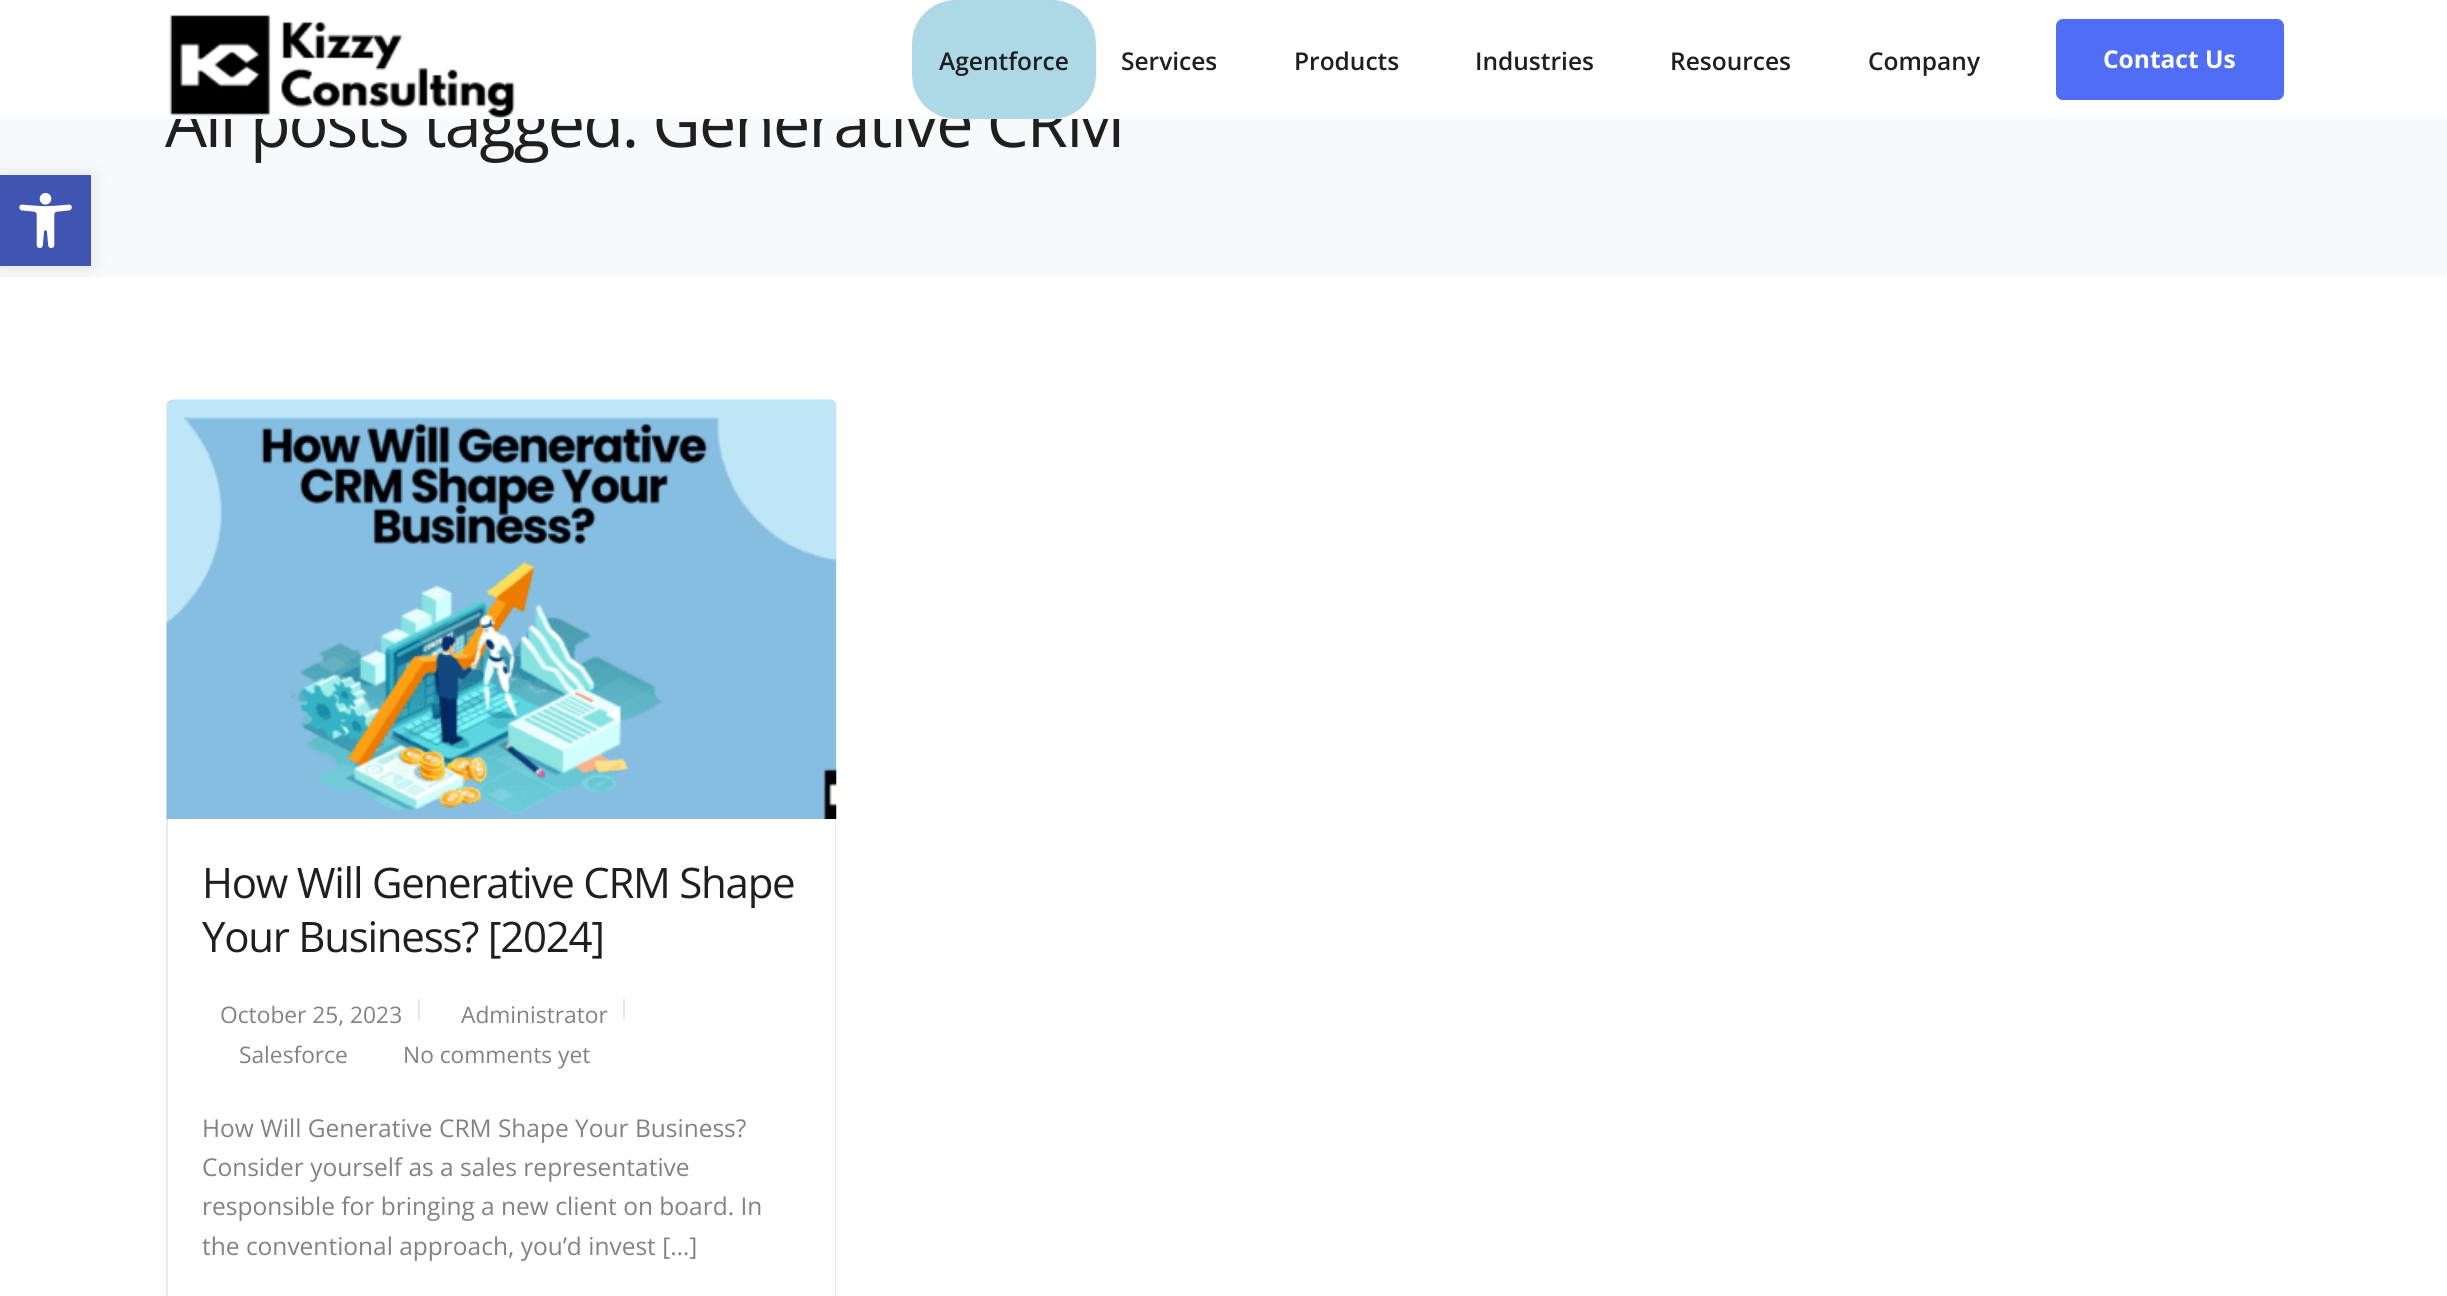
#include <cairo.h>
#include <math.h>
#include <stddef.h>


static void rgb(cairo_t *cr, int r, int g, int b)
{
	cairo_set_source_rgb(cr, r / 255.0, g / 255.0, b / 255.0);
}

static void face(cairo_t *cr, const char *family, double size, int italic, int bold)
{
	cairo_select_font_face(cr, family, italic ? CAIRO_FONT_SLANT_ITALIC : CAIRO_FONT_SLANT_NORMAL,
		bold ? CAIRO_FONT_WEIGHT_BOLD : CAIRO_FONT_WEIGHT_NORMAL);
	cairo_set_font_size(cr, size);
}

static void label(cairo_t *cr, double x, double y, const char *s)
{
	cairo_move_to(cr, x, y);
	cairo_show_text(cr, s);
}

static void tracked(cairo_t *cr, double x, double y, const char *s, double letter, double word)
{
	cairo_move_to(cr, x, y);
	while (*s) {
		char ch[5] = {0};
		int n = 0;
		do ch[n++] = *s++; while ((*s & 0xC0) == 0x80);
		cairo_show_text(cr, ch);
		cairo_rel_move_to(cr, letter + word * (*ch == ' '), 0);
	}
}

static void rect(cairo_t *cr, double x, double y, double w, double h)
{
	cairo_rectangle(cr, x, y, w, h);
	cairo_fill(cr);
}

static void rrect(cairo_t *cr, double x, double y, double w, double h, double r)
{
	cairo_new_sub_path(cr);
	cairo_arc(cr, x + w - r, y + h - r, r, 0, M_PI / 2);
	cairo_arc(cr, x + r, y + h - r, r, M_PI / 2, M_PI);
	cairo_arc(cr, x + r, y + r, r, M_PI, 1.5 * M_PI);
	cairo_arc(cr, x + w - r, y + r, r, 1.5 * M_PI, 2 * M_PI);
	cairo_close_path(cr);
}

static void soft_shadow(cairo_t *cr, double x, double y, double w, double h, double r, double blur, double alpha)
{
	cairo_push_group_with_content(cr, CAIRO_CONTENT_ALPHA);
	cairo_set_operator(cr, CAIRO_OPERATOR_SOURCE);
	for (int i = 15; i >= -15 && fmin(w, h) + blur * i / 3 > 0; i -= 2) {
		double e = blur * i / 6;
		cairo_set_source_rgba(cr, 0, 0, 0, alpha * erfc((i - 1) / 8.5) / 2);
		rrect(cr, x - e, y - e, w + 2 * e, h + 2 * e, fmax(0, fmin(r + e + blur * .6, fmin(w, h) / 2 + e)));
		cairo_fill(cr);
	}
	cairo_pattern_t *soft = cairo_pop_group(cr);
	cairo_mask(cr, soft);
	cairo_pattern_destroy(soft);
}

static void image(cairo_t *cr, const char *path, double x, double y, double w, double h)
{
	cairo_surface_t *image = cairo_image_surface_create_from_png(path);
	cairo_save(cr);
	cairo_set_source_surface(cr, image, x, y);
	cairo_rectangle(cr, x, y, w, h);
	cairo_fill(cr);
	cairo_restore(cr);
	cairo_surface_destroy(image);
}

static void draw(cairo_t *cr) {
	rgb(cr, 255, 255, 255);
	cairo_paint(cr);
	rgb(cr, 247, 249, 251);
	rect(cr, 0, 119, 2447, 158);
	face(cr, "Open Sans", 66.5, 0, 0);
	rgb(cr, 31, 31, 31);
	tracked(cr, 165, 147, "All posts tagged: Generative CRM", -2, 0);
	rgb(cr, 255, 255, 255);
	rect(cr, 176, 96, 944, 23);
	image(cr, "image0.png", 169, 14, 346, 104);
	rgb(cr, 173, 216, 230);
	rrect(cr, 912, 0, 184, 119, 44);
	cairo_fill(cr);
	face(cr, "Open Sans SemiBold", 24.5, 0, 0);
	rgb(cr, 31, 31, 31);
	label(cr, 939, 70, "Agentforce");
	label(cr, 1121, 70, "Services");
	label(cr, 1294, 70, "Products");
	label(cr, 1475, 70, "Industries");
	label(cr, 1670, 70, "Resources");
	label(cr, 1868, 70, "Company");
	rgb(cr, 79, 109, 245);
	rrect(cr, 2058, 21, 224, 77, 5);
	cairo_fill_preserve(cr);
	cairo_set_line_width(cr, 4);
	cairo_stroke(cr);
	face(cr, "Open Sans", 24.5, 0, 1);
	rgb(cr, 255, 255, 255);
	label(cr, 2103, 68, "Contact Us");
	rgb(cr, 0, 0, 0);
	soft_shadow(cr, 0, 175, 91, 91, 0, 9, 0.1);
	rgb(cr, 64, 84, 178);
	rect(cr, 0, 175, 91, 91);
	image(cr, "image1.png", 19, 193, 53, 56);
	image(cr, "image2.png", 166, 399, 671, 420);
	rgb(cr, 229, 231, 242);
	cairo_set_fill_rule(cr, CAIRO_FILL_RULE_EVEN_ODD);
	cairo_new_path(cr);
	cairo_move_to(cr, 166, 819);
	cairo_line_to(cr, 836, 819);
	cairo_line_to(cr, 836, 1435);
	cairo_curve_to(cr, 836, 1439, 833, 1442, 830, 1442);
	cairo_line_to(cr, 173, 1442);
	cairo_curve_to(cr, 169, 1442, 166, 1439, 166, 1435);
	cairo_close_path(cr);
	cairo_move_to(cr, 168, 819);
	cairo_line_to(cr, 835, 819);
	cairo_line_to(cr, 835, 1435);
	cairo_curve_to(cr, 835, 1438, 832, 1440, 830, 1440);
	cairo_line_to(cr, 173, 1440);
	cairo_curve_to(cr, 170, 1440, 168, 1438, 168, 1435);
	cairo_close_path(cr);
	cairo_fill(cr);
	face(cr, "Open Sans", 42, 0, 0);
	rgb(cr, 31, 31, 31);
	tracked(cr, 202, 898, "How Will Generative CRM Shape", -1.25, 0);
	tracked(cr, 202, 952, "Your Business? [2024]", -1.25, 0);
	face(cr, "Open Sans", 22.75, 0, 0);
	rgb(cr, 130, 130, 130);
	label(cr, 220, 1023, "October 25, 2023");
	rgb(cr, 229, 231, 242);
	rect(cr, 418, 999, 2, 21);
	rgb(cr, 130, 130, 130);
	label(cr, 461, 1023, "Administrator");
	rgb(cr, 229, 231, 242);
	rect(cr, 623, 999, 2, 21);
	rgb(cr, 130, 130, 130);
	label(cr, 239, 1063, "Salesforce");
	label(cr, 403, 1063, "No comments yet");
	face(cr, "Open Sans", 24.5, 0, 0);
	label(cr, 202, 1137, "How Will Generative CRM Shape Your Business?");
	label(cr, 202, 1176, "Consider yourself as a sales representative");
	label(cr, 202, 1215, "responsible for bringing a new client on board. In");
	label(cr, 202, 1255, "the conventional approach, you’d invest […]");
}

int main(void) {
	cairo_surface_t *surface = cairo_image_surface_create(CAIRO_FORMAT_RGB24, 2447, 1296);
	cairo_t *cr = cairo_create(surface);
	cairo_font_options_t *options = cairo_font_options_create();
	cairo_font_options_set_hint_metrics(options, CAIRO_HINT_METRICS_OFF);
	cairo_font_options_set_hint_style(options, CAIRO_HINT_STYLE_NONE);
	cairo_set_font_options(cr, options);
	cairo_set_miter_limit(cr, 4);
	draw(cr);
	cairo_surface_write_to_png(surface, "render.png");
	cairo_font_options_destroy(options);
	cairo_destroy(cr);
	cairo_surface_destroy(surface);
	return 0;
}
